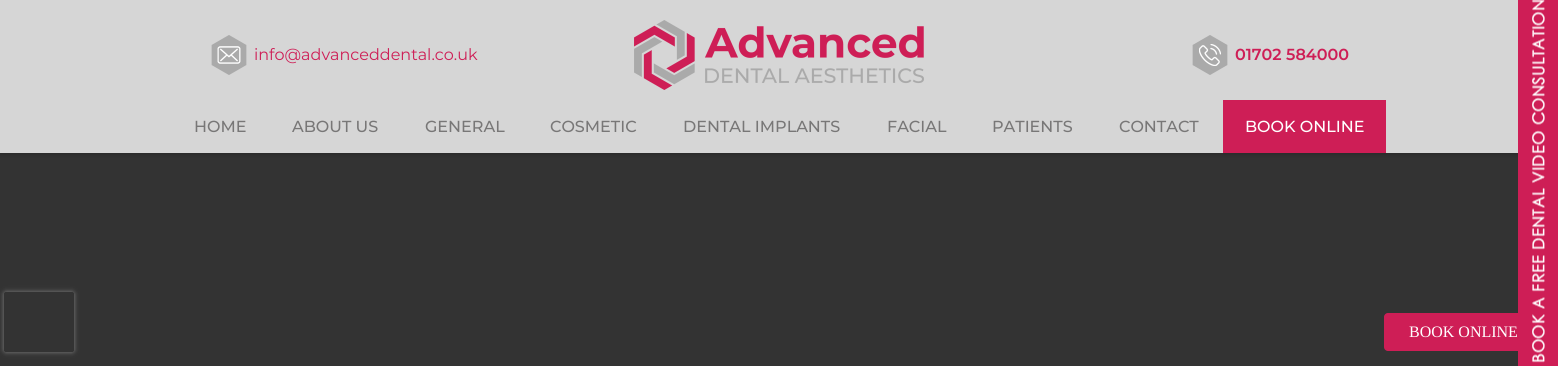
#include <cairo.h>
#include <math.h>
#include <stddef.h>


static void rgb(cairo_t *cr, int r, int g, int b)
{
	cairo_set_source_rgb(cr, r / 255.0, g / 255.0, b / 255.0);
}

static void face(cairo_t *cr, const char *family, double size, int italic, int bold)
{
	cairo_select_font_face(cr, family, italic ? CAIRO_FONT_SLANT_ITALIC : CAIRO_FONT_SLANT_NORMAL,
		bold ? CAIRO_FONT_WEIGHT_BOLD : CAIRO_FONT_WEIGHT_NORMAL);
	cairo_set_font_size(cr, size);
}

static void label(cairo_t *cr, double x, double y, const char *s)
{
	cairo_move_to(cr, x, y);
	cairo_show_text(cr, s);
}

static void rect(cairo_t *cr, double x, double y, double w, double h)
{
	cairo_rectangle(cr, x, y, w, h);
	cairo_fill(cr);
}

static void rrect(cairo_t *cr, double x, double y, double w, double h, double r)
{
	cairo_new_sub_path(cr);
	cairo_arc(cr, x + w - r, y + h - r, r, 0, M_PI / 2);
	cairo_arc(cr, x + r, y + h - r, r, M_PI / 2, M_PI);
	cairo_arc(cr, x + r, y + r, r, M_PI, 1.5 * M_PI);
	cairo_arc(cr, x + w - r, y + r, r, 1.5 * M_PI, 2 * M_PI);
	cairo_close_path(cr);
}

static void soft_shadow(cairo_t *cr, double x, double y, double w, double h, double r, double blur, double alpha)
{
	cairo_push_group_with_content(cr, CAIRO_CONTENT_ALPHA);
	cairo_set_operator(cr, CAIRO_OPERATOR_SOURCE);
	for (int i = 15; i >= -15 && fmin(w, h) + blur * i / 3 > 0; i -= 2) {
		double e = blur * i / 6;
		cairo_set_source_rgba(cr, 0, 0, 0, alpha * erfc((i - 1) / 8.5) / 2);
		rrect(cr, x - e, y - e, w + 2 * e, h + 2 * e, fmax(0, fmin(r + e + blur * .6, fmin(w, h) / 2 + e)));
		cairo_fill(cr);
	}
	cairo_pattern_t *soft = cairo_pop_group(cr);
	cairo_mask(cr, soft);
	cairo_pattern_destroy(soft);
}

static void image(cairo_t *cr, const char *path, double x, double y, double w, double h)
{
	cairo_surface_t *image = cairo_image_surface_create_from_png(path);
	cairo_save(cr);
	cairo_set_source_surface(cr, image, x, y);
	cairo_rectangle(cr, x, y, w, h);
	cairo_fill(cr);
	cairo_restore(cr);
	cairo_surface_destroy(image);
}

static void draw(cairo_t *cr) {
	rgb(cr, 51, 51, 51);
	cairo_paint(cr);
	rgb(cr, 0, 0, 0);
	soft_shadow(cr, 0, 2, 1558, 153, 0, 3, 0.2);
	rgb(cr, 214, 214, 214);
	rect(cr, 0, 0, 1518, 153);
	image(cr, "image0.png", 634, 20, 290, 70);
	image(cr, "image1.png", 211, 35, 36, 40);
	face(cr, "Montserrat", 16, 0, 0);
	rgb(cr, 206, 30, 86);
	label(cr, 254, 60, "info@advanceddental.co.uk");
	image(cr, "image2.png", 1192, 35, 36, 40);
	face(cr, "Montserrat SemiBold", 16, 0, 0);
	label(cr, 1235, 60, "01702 584000");
	face(cr, "Montserrat Medium", 16, 0, 0);
	rgb(cr, 120, 119, 119);
	label(cr, 194, 132, "HOME");
	label(cr, 292, 132, "ABOUT US");
	label(cr, 425, 132, "GENERAL");
	label(cr, 550, 132, "COSMETIC");
	label(cr, 683, 132, "DENTAL IMPLANTS");
	label(cr, 887, 132, "FACIAL");
	label(cr, 992, 132, "PATIENTS");
	label(cr, 1119, 132, "CONTACT");
	rgb(cr, 206, 30, 86);
	rect(cr, 1223, 100, 163, 53);
	rgb(cr, 255, 255, 255);
	label(cr, 1245, 132, "BOOK ONLINE");
	rgb(cr, 206, 30, 86);
	rrect(cr, 1384, 313, 159, 38, 4);
	cairo_fill(cr);
	image(cr, "image3.png", 1518, 0, 40, 366);
	cairo_save(cr);
	cairo_set_fill_rule(cr, CAIRO_FILL_RULE_EVEN_ODD);
	cairo_new_path(cr);
	cairo_move_to(cr, 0, 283);
	cairo_line_to(cr, 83, 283);
	cairo_line_to(cr, 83, 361);
	cairo_line_to(cr, 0, 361);
	cairo_close_path(cr);
	cairo_move_to(cr, 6, 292);
	cairo_line_to(cr, 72, 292);
	cairo_curve_to(cr, 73, 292, 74, 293, 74, 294);
	cairo_line_to(cr, 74, 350);
	cairo_curve_to(cr, 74, 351, 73, 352, 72, 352);
	cairo_line_to(cr, 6, 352);
	cairo_curve_to(cr, 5, 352, 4, 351, 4, 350);
	cairo_line_to(cr, 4, 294);
	cairo_curve_to(cr, 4, 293, 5, 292, 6, 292);
	cairo_close_path(cr);
	cairo_clip(cr);
	rgb(cr, 128, 128, 128);
	soft_shadow(cr, 4, 292, 70, 60, 2, 2.5, 1);
	cairo_restore(cr);
	face(cr, "Liberation Serif", 16, 0, 0);
	rgb(cr, 255, 255, 255);
	label(cr, 1409, 337, "BOOK ONLINE");
}

int main(void) {
	cairo_surface_t *surface = cairo_image_surface_create(CAIRO_FORMAT_RGB24, 1558, 366);
	cairo_t *cr = cairo_create(surface);
	cairo_font_options_t *options = cairo_font_options_create();
	cairo_font_options_set_hint_metrics(options, CAIRO_HINT_METRICS_OFF);
	cairo_font_options_set_hint_style(options, CAIRO_HINT_STYLE_NONE);
	cairo_set_font_options(cr, options);
	cairo_set_miter_limit(cr, 4);
	draw(cr);
	cairo_surface_write_to_png(surface, "render.png");
	cairo_font_options_destroy(options);
	cairo_destroy(cr);
	cairo_surface_destroy(surface);
	return 0;
}
